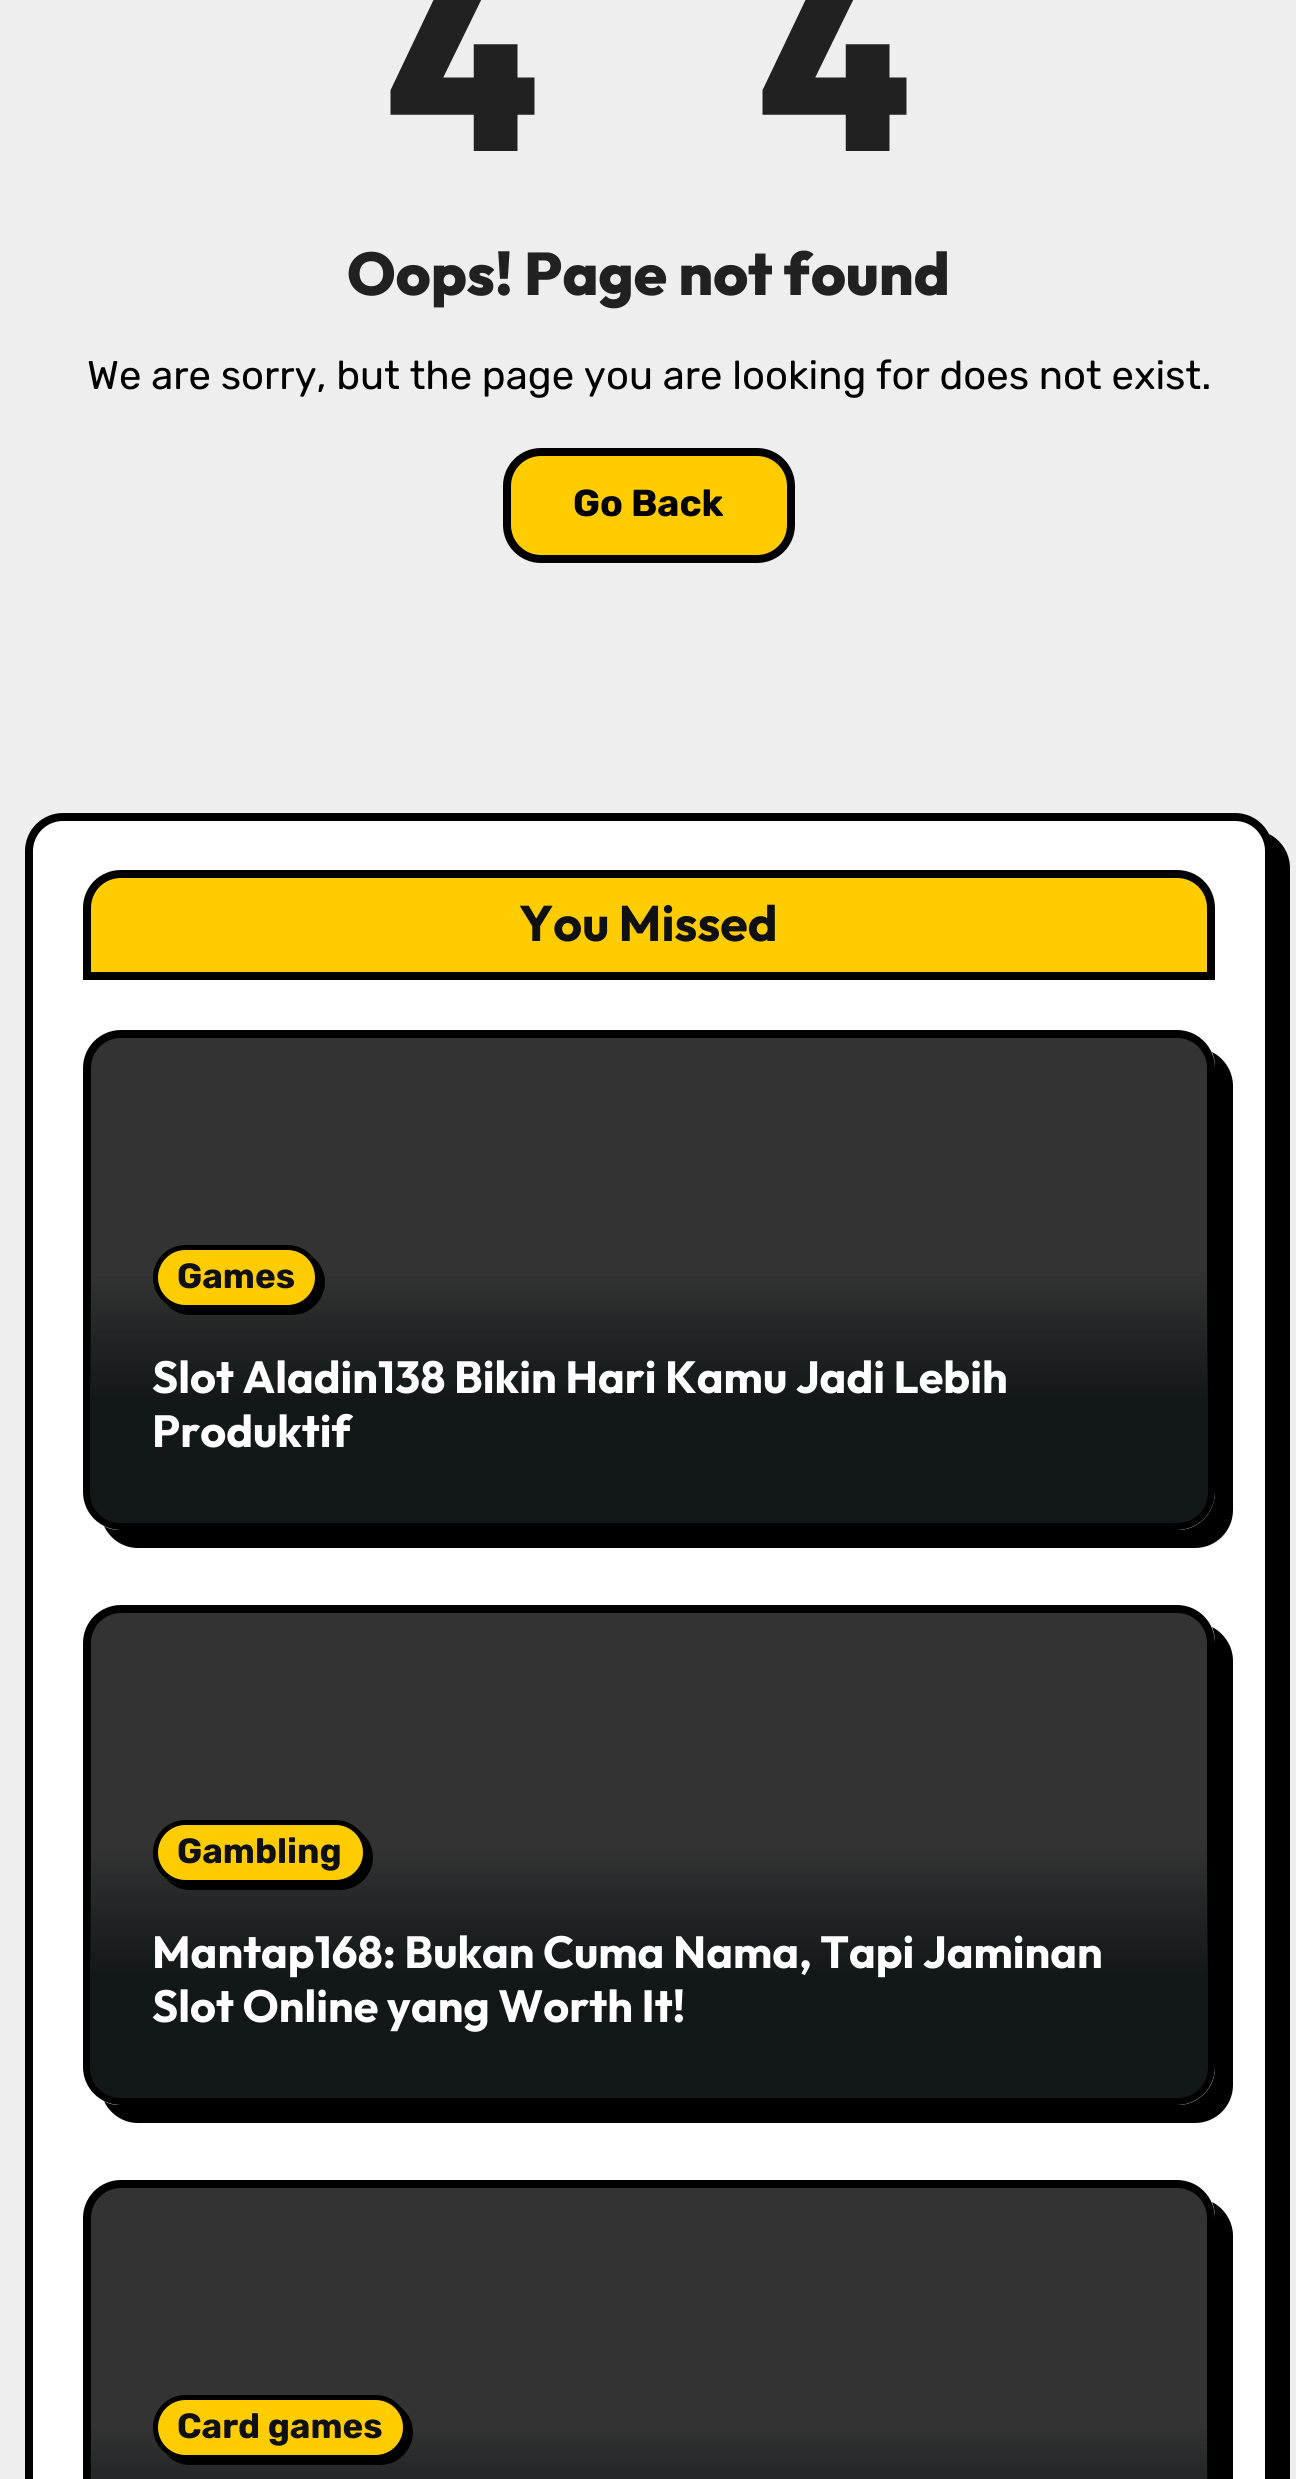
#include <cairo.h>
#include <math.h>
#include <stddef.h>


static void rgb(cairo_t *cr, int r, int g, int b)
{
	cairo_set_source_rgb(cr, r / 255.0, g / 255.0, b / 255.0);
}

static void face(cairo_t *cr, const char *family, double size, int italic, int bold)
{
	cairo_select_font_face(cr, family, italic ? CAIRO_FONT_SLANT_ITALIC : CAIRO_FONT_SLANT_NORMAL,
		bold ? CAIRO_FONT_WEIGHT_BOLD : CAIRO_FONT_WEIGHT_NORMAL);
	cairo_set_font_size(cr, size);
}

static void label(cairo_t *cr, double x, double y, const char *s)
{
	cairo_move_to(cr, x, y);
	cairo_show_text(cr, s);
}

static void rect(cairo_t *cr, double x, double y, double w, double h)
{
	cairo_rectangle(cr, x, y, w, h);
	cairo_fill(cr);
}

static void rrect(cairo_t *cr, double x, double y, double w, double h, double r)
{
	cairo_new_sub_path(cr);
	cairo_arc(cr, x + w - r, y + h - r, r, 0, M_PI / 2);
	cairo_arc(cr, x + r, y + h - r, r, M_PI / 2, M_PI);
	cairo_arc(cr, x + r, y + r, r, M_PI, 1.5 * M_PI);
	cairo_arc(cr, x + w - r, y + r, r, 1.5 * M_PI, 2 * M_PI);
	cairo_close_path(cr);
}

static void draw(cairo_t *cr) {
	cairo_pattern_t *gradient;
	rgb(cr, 238, 238, 238);
	cairo_paint(cr);
	face(cr, "Outfit ExtraBold", 250, 0, 0);
	rgb(cr, 33, 33, 33);
	label(cr, 386, 151, "4");
	label(cr, 758, 151, "4");
	face(cr, "Outfit ExtraBold", 60, 0, 0);
	label(cr, 347, 295, "Oops! Page not found");
	face(cr, "Rubik Light", 40, 0, 0);
	rgb(cr, 0, 0, 0);
	label(cr, 87, 389, "We are sorry, but the page you are looking for does not exist.");
	rgb(cr, 255, 204, 0);
	rrect(cr, 507, 452, 284, 107, 34);
	cairo_fill_preserve(cr);
	rgb(cr, 0, 0, 0);
	cairo_set_line_width(cr, 8);
	cairo_stroke(cr);
	face(cr, "Rubik", 37.5, 0, 1);
	label(cr, 573, 516, "Go Back");
	cairo_new_path(cr);
	cairo_move_to(cr, 47, 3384);
	cairo_curve_to(cr, 53, 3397, 66, 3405, 81, 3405);
	cairo_line_to(cr, 1252, 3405);
	cairo_curve_to(cr, 1273, 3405, 1290, 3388, 1290, 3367);
	cairo_line_to(cr, 1290, 868);
	cairo_curve_to(cr, 1290, 853, 1281, 840, 1269, 834);
	cairo_curve_to(cr, 1271, 839, 1272, 844, 1272, 850);
	cairo_line_to(cr, 1272, 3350);
	cairo_curve_to(cr, 1272, 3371, 1256, 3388, 1235, 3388);
	cairo_line_to(cr, 62, 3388);
	cairo_curve_to(cr, 57, 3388, 52, 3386, 47, 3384);
	cairo_close_path(cr);
	cairo_fill(cr);
	rgb(cr, 255, 255, 255);
	rrect(cr, 29, 817, 1240, 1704, 34);
	cairo_fill_preserve(cr);
	rgb(cr, 0, 0, 0);
	cairo_stroke(cr);
	rgb(cr, 255, 204, 0);
	cairo_new_path(cr);
	cairo_move_to(cr, 121, 874);
	cairo_line_to(cr, 1177, 874);
	cairo_curve_to(cr, 1196, 874, 1211, 889, 1211, 908);
	cairo_line_to(cr, 1211, 976);
	cairo_line_to(cr, 87, 976);
	cairo_line_to(cr, 87, 908);
	cairo_curve_to(cr, 87, 889, 102, 874, 121, 874);
	cairo_close_path(cr);
	cairo_fill_preserve(cr);
	rgb(cr, 0, 0, 0);
	cairo_stroke(cr);
	face(cr, "Outfit", 50, 0, 1);
	rgb(cr, 15, 16, 18);
	label(cr, 519, 941, "You Missed");
	rgb(cr, 0, 0, 0);
	cairo_new_path(cr);
	cairo_move_to(cr, 104, 1526);
	cairo_curve_to(cr, 110, 1539, 123, 1548, 138, 1548);
	cairo_line_to(cr, 1195, 1548);
	cairo_curve_to(cr, 1216, 1548, 1233, 1531, 1233, 1510);
	cairo_line_to(cr, 1233, 1086);
	cairo_curve_to(cr, 1233, 1071, 1224, 1058, 1212, 1052);
	cairo_curve_to(cr, 1214, 1057, 1215, 1062, 1215, 1068);
	cairo_line_to(cr, 1215, 1492);
	cairo_curve_to(cr, 1215, 1513, 1198, 1530, 1178, 1530);
	cairo_line_to(cr, 120, 1530);
	cairo_curve_to(cr, 114, 1530, 109, 1529, 104, 1526);
	cairo_close_path(cr);
	cairo_fill(cr);
	rgb(cr, 51, 51, 51);
	rrect(cr, 87, 1034, 1124, 492, 34);
	cairo_fill_preserve(cr);
	rgb(cr, 0, 0, 0);
	cairo_stroke(cr);
	gradient = cairo_pattern_create_linear(649, 1038, 649, 1523);
	cairo_pattern_add_color_stop_rgba(gradient, 0.48, 0.071, 0.09, 0.094, 0);
	cairo_pattern_add_color_stop_rgba(gradient, 0.75, 0.071, 0.09, 0.094, 1);
	cairo_set_source(cr, gradient);
	cairo_pattern_destroy(gradient);
	rrect(cr, 90, 1038, 1118, 485, 30);
	cairo_fill(cr);
	rgb(cr, 0, 0, 0);
	cairo_new_path(cr);
	cairo_move_to(cr, 166, 1304);
	cairo_curve_to(cr, 172, 1311, 181, 1315, 190, 1315);
	cairo_line_to(cr, 292, 1315);
	cairo_curve_to(cr, 310, 1315, 325, 1300, 325, 1282);
	cairo_curve_to(cr, 325, 1272, 320, 1263, 313, 1257);
	cairo_curve_to(cr, 317, 1263, 320, 1270, 320, 1278);
	cairo_curve_to(cr, 320, 1295, 305, 1310, 288, 1310);
	cairo_line_to(cr, 185, 1310);
	cairo_curve_to(cr, 178, 1310, 171, 1308, 166, 1304);
	cairo_close_path(cr);
	cairo_fill(cr);
	rgb(cr, 255, 204, 0);
	rrect(cr, 155.5, 1247.5, 162, 60, 30);
	cairo_fill_preserve(cr);
	rgb(cr, 0, 0, 0);
	cairo_set_line_width(cr, 5);
	cairo_stroke(cr);
	face(cr, "Rubik", 35, 0, 1);
	rgb(cr, 15, 16, 18);
	label(cr, 177, 1288, "Games");
	face(cr, "Outfit", 45, 0, 1);
	rgb(cr, 255, 255, 255);
	label(cr, 152, 1393, "Slot Aladin138 Bikin Hari Kamu Jadi Lebih");
	label(cr, 152, 1447, "Produktif");
	rgb(cr, 0, 0, 0);
	cairo_new_path(cr);
	cairo_move_to(cr, 104, 2101);
	cairo_curve_to(cr, 110, 2114, 123, 2123, 138, 2123);
	cairo_line_to(cr, 1195, 2123);
	cairo_curve_to(cr, 1216, 2123, 1233, 2106, 1233, 2085);
	cairo_line_to(cr, 1233, 1661);
	cairo_curve_to(cr, 1233, 1646, 1224, 1633, 1212, 1627);
	cairo_curve_to(cr, 1214, 1632, 1215, 1637, 1215, 1642);
	cairo_line_to(cr, 1215, 2068);
	cairo_curve_to(cr, 1215, 2088, 1198, 2105, 1178, 2105);
	cairo_line_to(cr, 120, 2105);
	cairo_curve_to(cr, 114, 2105, 109, 2104, 104, 2101);
	cairo_close_path(cr);
	cairo_fill(cr);
	rgb(cr, 51, 51, 51);
	rrect(cr, 87, 1609, 1124, 492, 34);
	cairo_fill_preserve(cr);
	rgb(cr, 0, 0, 0);
	cairo_set_line_width(cr, 8);
	cairo_stroke(cr);
	gradient = cairo_pattern_create_linear(649, 1613, 649, 2098);
	cairo_pattern_add_color_stop_rgba(gradient, 0.48, 0.071, 0.09, 0.094, 0);
	cairo_pattern_add_color_stop_rgba(gradient, 0.75, 0.071, 0.09, 0.094, 1);
	cairo_set_source(cr, gradient);
	cairo_pattern_destroy(gradient);
	rrect(cr, 90, 1613, 1118, 485, 30);
	cairo_fill(cr);
	rgb(cr, 0, 0, 0);
	cairo_new_path(cr);
	cairo_move_to(cr, 166, 1879);
	cairo_curve_to(cr, 172, 1886, 181, 1890, 190, 1890);
	cairo_line_to(cr, 340, 1890);
	cairo_curve_to(cr, 358, 1890, 373, 1875, 373, 1858);
	cairo_curve_to(cr, 373, 1847, 368, 1837, 359, 1831);
	cairo_curve_to(cr, 364, 1837, 368, 1844, 368, 1852);
	cairo_curve_to(cr, 368, 1870, 353, 1885, 335, 1885);
	cairo_line_to(cr, 185, 1885);
	cairo_curve_to(cr, 178, 1885, 171, 1883, 166, 1879);
	cairo_close_path(cr);
	cairo_fill(cr);
	rgb(cr, 255, 204, 0);
	rrect(cr, 155.5, 1822.5, 210, 60, 30);
	cairo_fill_preserve(cr);
	rgb(cr, 0, 0, 0);
	cairo_set_line_width(cr, 5);
	cairo_stroke(cr);
	face(cr, "Rubik", 35, 0, 1);
	rgb(cr, 15, 16, 18);
	label(cr, 177, 1863, "Gambling");
	face(cr, "Outfit", 45, 0, 1);
	rgb(cr, 255, 255, 255);
	label(cr, 152, 1968, "Mantap168: Bukan Cuma Nama, Tapi Jaminan");
	label(cr, 152, 2022, "Slot Online yang Worth It!");
	rgb(cr, 0, 0, 0);
	cairo_new_path(cr);
	cairo_move_to(cr, 104, 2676);
	cairo_curve_to(cr, 110, 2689, 123, 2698, 138, 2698);
	cairo_line_to(cr, 1195, 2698);
	cairo_curve_to(cr, 1216, 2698, 1233, 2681, 1233, 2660);
	cairo_line_to(cr, 1233, 2236);
	cairo_curve_to(cr, 1233, 2221, 1224, 2208, 1212, 2202);
	cairo_curve_to(cr, 1214, 2207, 1215, 2212, 1215, 2218);
	cairo_line_to(cr, 1215, 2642);
	cairo_curve_to(cr, 1215, 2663, 1198, 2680, 1178, 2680);
	cairo_line_to(cr, 120, 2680);
	cairo_curve_to(cr, 114, 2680, 109, 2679, 104, 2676);
	cairo_close_path(cr);
	cairo_fill(cr);
	rgb(cr, 51, 51, 51);
	rrect(cr, 87, 2184, 1124, 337, 34);
	cairo_fill_preserve(cr);
	rgb(cr, 0, 0, 0);
	cairo_set_line_width(cr, 8);
	cairo_stroke(cr);
	gradient = cairo_pattern_create_linear(649, 2188, 649, 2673);
	cairo_pattern_add_color_stop_rgba(gradient, 0.48, 0.071, 0.09, 0.094, 0);
	cairo_pattern_add_color_stop_rgba(gradient, 0.75, 0.071, 0.09, 0.094, 1);
	cairo_set_source(cr, gradient);
	cairo_pattern_destroy(gradient);
	rect(cr, 90, 2430, 1118, 49);
	rgb(cr, 0, 0, 0);
	cairo_new_path(cr);
	cairo_move_to(cr, 166, 2454);
	cairo_curve_to(cr, 172, 2461, 181, 2465, 190, 2465);
	cairo_line_to(cr, 380, 2465);
	cairo_curve_to(cr, 398, 2465, 413, 2450, 413, 2432);
	cairo_curve_to(cr, 413, 2422, 408, 2412, 399, 2406);
	cairo_curve_to(cr, 404, 2412, 408, 2419, 408, 2428);
	cairo_curve_to(cr, 408, 2445, 393, 2460, 375, 2460);
	cairo_line_to(cr, 185, 2460);
	cairo_curve_to(cr, 178, 2460, 171, 2458, 166, 2454);
	cairo_close_path(cr);
	cairo_fill(cr);
	rgb(cr, 255, 204, 0);
	rrect(cr, 155.5, 2397.5, 250, 60, 30);
	cairo_fill_preserve(cr);
	rgb(cr, 0, 0, 0);
	cairo_set_line_width(cr, 5);
	cairo_stroke(cr);
	face(cr, "Rubik", 35, 0, 1);
	rgb(cr, 15, 16, 18);
	label(cr, 177, 2438, "Card games");
}

int main(void) {
	cairo_surface_t *surface = cairo_image_surface_create(CAIRO_FORMAT_RGB24, 1296, 2479);
	cairo_t *cr = cairo_create(surface);
	cairo_font_options_t *options = cairo_font_options_create();
	cairo_font_options_set_hint_metrics(options, CAIRO_HINT_METRICS_OFF);
	cairo_font_options_set_hint_style(options, CAIRO_HINT_STYLE_NONE);
	cairo_set_font_options(cr, options);
	cairo_set_miter_limit(cr, 4);
	draw(cr);
	cairo_surface_write_to_png(surface, "render.png");
	cairo_font_options_destroy(options);
	cairo_destroy(cr);
	cairo_surface_destroy(surface);
	return 0;
}
